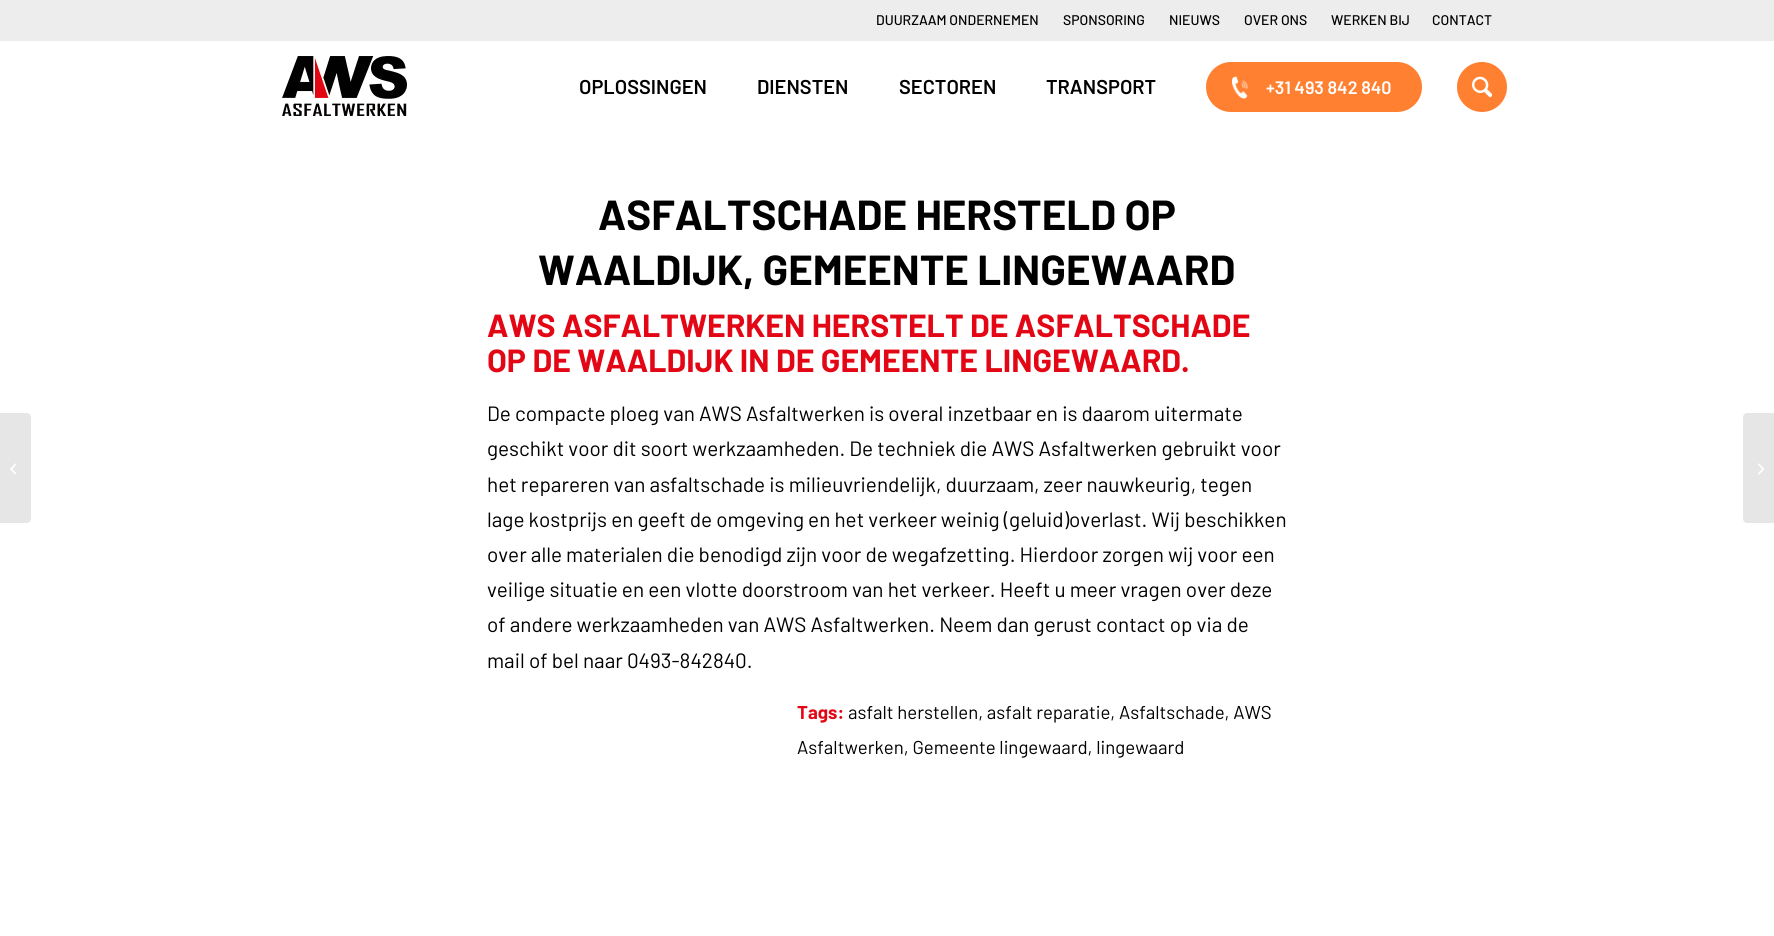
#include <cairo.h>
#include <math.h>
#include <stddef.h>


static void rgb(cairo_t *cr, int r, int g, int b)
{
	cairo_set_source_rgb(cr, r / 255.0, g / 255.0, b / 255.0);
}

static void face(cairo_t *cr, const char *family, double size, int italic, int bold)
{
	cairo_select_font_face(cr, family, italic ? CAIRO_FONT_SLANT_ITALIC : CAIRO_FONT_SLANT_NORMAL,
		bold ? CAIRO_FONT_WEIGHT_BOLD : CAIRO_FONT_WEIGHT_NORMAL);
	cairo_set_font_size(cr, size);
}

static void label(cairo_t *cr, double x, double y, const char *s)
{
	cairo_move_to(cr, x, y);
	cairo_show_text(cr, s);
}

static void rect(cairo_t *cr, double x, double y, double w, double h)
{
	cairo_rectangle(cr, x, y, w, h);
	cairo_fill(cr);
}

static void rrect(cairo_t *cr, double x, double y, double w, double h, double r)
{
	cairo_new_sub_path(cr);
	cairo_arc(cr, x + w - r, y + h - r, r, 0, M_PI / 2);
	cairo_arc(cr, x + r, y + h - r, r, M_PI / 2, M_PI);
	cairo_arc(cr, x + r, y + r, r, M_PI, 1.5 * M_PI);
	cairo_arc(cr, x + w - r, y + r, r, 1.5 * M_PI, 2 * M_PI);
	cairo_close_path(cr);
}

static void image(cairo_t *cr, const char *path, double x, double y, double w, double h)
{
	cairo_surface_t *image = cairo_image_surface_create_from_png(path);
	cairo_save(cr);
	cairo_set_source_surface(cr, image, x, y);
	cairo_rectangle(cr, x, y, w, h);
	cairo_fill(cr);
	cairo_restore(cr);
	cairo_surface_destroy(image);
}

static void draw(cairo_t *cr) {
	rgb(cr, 255, 255, 255);
	cairo_paint(cr);
	rgb(cr, 237, 237, 237);
	rect(cr, 0, 0, 1774, 41);
	face(cr, "Barlow Medium", 14, 0, 0);
	rgb(cr, 0, 0, 0);
	label(cr, 876, 25, "DUURZAAM ONDERNEMEN");
	label(cr, 1063, 25, "SPONSORING");
	label(cr, 1169, 25, "NIEUWS");
	label(cr, 1244, 25, "OVER ONS");
	label(cr, 1331, 25, "WERKEN BIJ");
	label(cr, 1432, 25, "CONTACT");
	image(cr, "image0.png", 282, 56, 125, 60);
	face(cr, "Barlow SemiBold", 20, 0, 0);
	label(cr, 579, 94, "OPLOSSINGEN");
	label(cr, 757, 94, "DIENSTEN");
	label(cr, 899, 94, "SECTOREN");
	label(cr, 1046, 94, "TRANSPORT");
	rgb(cr, 255, 128, 49);
	rrect(cr, 1206, 62, 216, 50, 25);
	cairo_fill(cr);
	image(cr, "image1.png", 1231, 76, 17, 23);
	face(cr, "Barlow SemiBold", 18, 0, 0);
	rgb(cr, 255, 255, 255);
	label(cr, 1266, 94, "+31 493 842 840");
	rgb(cr, 255, 128, 49);
	cairo_new_path(cr);
	cairo_arc(cr, 1482, 87, 25, 0, 2 * M_PI);
	cairo_fill(cr);
	image(cr, "image2.png", 1472, 76, 20, 22);
	rgb(cr, 230, 230, 230);
	cairo_new_path(cr);
	cairo_move_to(cr, 0, 413);
	cairo_line_to(cr, 27, 413);
	cairo_curve_to(cr, 29, 413, 31, 415, 31, 417);
	cairo_line_to(cr, 31, 519);
	cairo_curve_to(cr, 31, 521, 29, 523, 27, 523);
	cairo_line_to(cr, 0, 523);
	cairo_close_path(cr);
	cairo_fill(cr);
	image(cr, "image3.png", 10, 463, 6, 12);
	face(cr, "Barlow", 42, 0, 1);
	rgb(cr, 0, 0, 0);
	label(cr, 598, 230, "ASFALTSCHADE HERSTELD OP");
	label(cr, 538, 285, "WAALDIJK, GEMEENTE LINGEWAARD");
	face(cr, "Barlow", 32, 0, 1);
	rgb(cr, 227, 6, 21);
	label(cr, 487, 337, "AWS ASFALTWERKEN HERSTELT DE ASFALTSCHADE");
	label(cr, 487, 372, "OP DE WAALDIJK IN DE GEMEENTE LINGEWAARD.");
	face(cr, "Barlow", 20.7, 0, 0);
	rgb(cr, 0, 0, 0);
	label(cr, 487, 421, "De compacte ploeg van AWS Asfaltwerken is overal inzetbaar en is daarom uitermate");
	label(cr, 487, 456, "geschikt voor dit soort werkzaamheden. De techniek die AWS Asfaltwerken gebruikt voor");
	label(cr, 487, 492, "het repareren van asfaltschade is milieuvriendelijk, duurzaam, zeer nauwkeurig, tegen");
	label(cr, 487, 527, "lage kostprijs en geeft de omgeving en het verkeer weinig (geluid)overlast. Wij beschikken");
	label(cr, 487, 562, "over alle materialen die benodigd zijn voor de wegafzetting. Hierdoor zorgen wij voor een");
	label(cr, 487, 597, "veilige situatie en een vlotte doorstroom van het verkeer. Heeft u meer vragen over deze");
	label(cr, 487, 632, "of andere werkzaamheden van AWS Asfaltwerken. Neem dan gerust contact op via de");
	label(cr, 487, 668, "mail of bel naar 0493-842840.");
	face(cr, "Barlow", 18.6, 0, 1);
	rgb(cr, 227, 6, 21);
	label(cr, 797, 719, "Tags:");
	face(cr, "Barlow", 18.6, 0, 0);
	rgb(cr, 0, 0, 0);
	label(cr, 848, 719, "asfalt herstellen, asfalt reparatie, Asfaltschade, AWS");
	label(cr, 797, 754, "Asfaltwerken, Gemeente lingewaard, lingewaard");
	rgb(cr, 230, 230, 230);
	cairo_new_path(cr);
	cairo_move_to(cr, 1747, 413);
	cairo_line_to(cr, 1774, 413);
	cairo_line_to(cr, 1774, 523);
	cairo_line_to(cr, 1747, 523);
	cairo_curve_to(cr, 1745, 523, 1743, 521, 1743, 519);
	cairo_line_to(cr, 1743, 417);
	cairo_curve_to(cr, 1743, 415, 1745, 413, 1747, 413);
	cairo_close_path(cr);
	cairo_fill(cr);
	image(cr, "image4.png", 1758, 463, 6, 12);
}

int main(void) {
	cairo_surface_t *surface = cairo_image_surface_create(CAIRO_FORMAT_RGB24, 1774, 936);
	cairo_t *cr = cairo_create(surface);
	cairo_font_options_t *options = cairo_font_options_create();
	cairo_font_options_set_hint_metrics(options, CAIRO_HINT_METRICS_OFF);
	cairo_font_options_set_hint_style(options, CAIRO_HINT_STYLE_NONE);
	cairo_set_font_options(cr, options);
	cairo_set_miter_limit(cr, 4);
	draw(cr);
	cairo_surface_write_to_png(surface, "render.png");
	cairo_font_options_destroy(options);
	cairo_destroy(cr);
	cairo_surface_destroy(surface);
	return 0;
}
